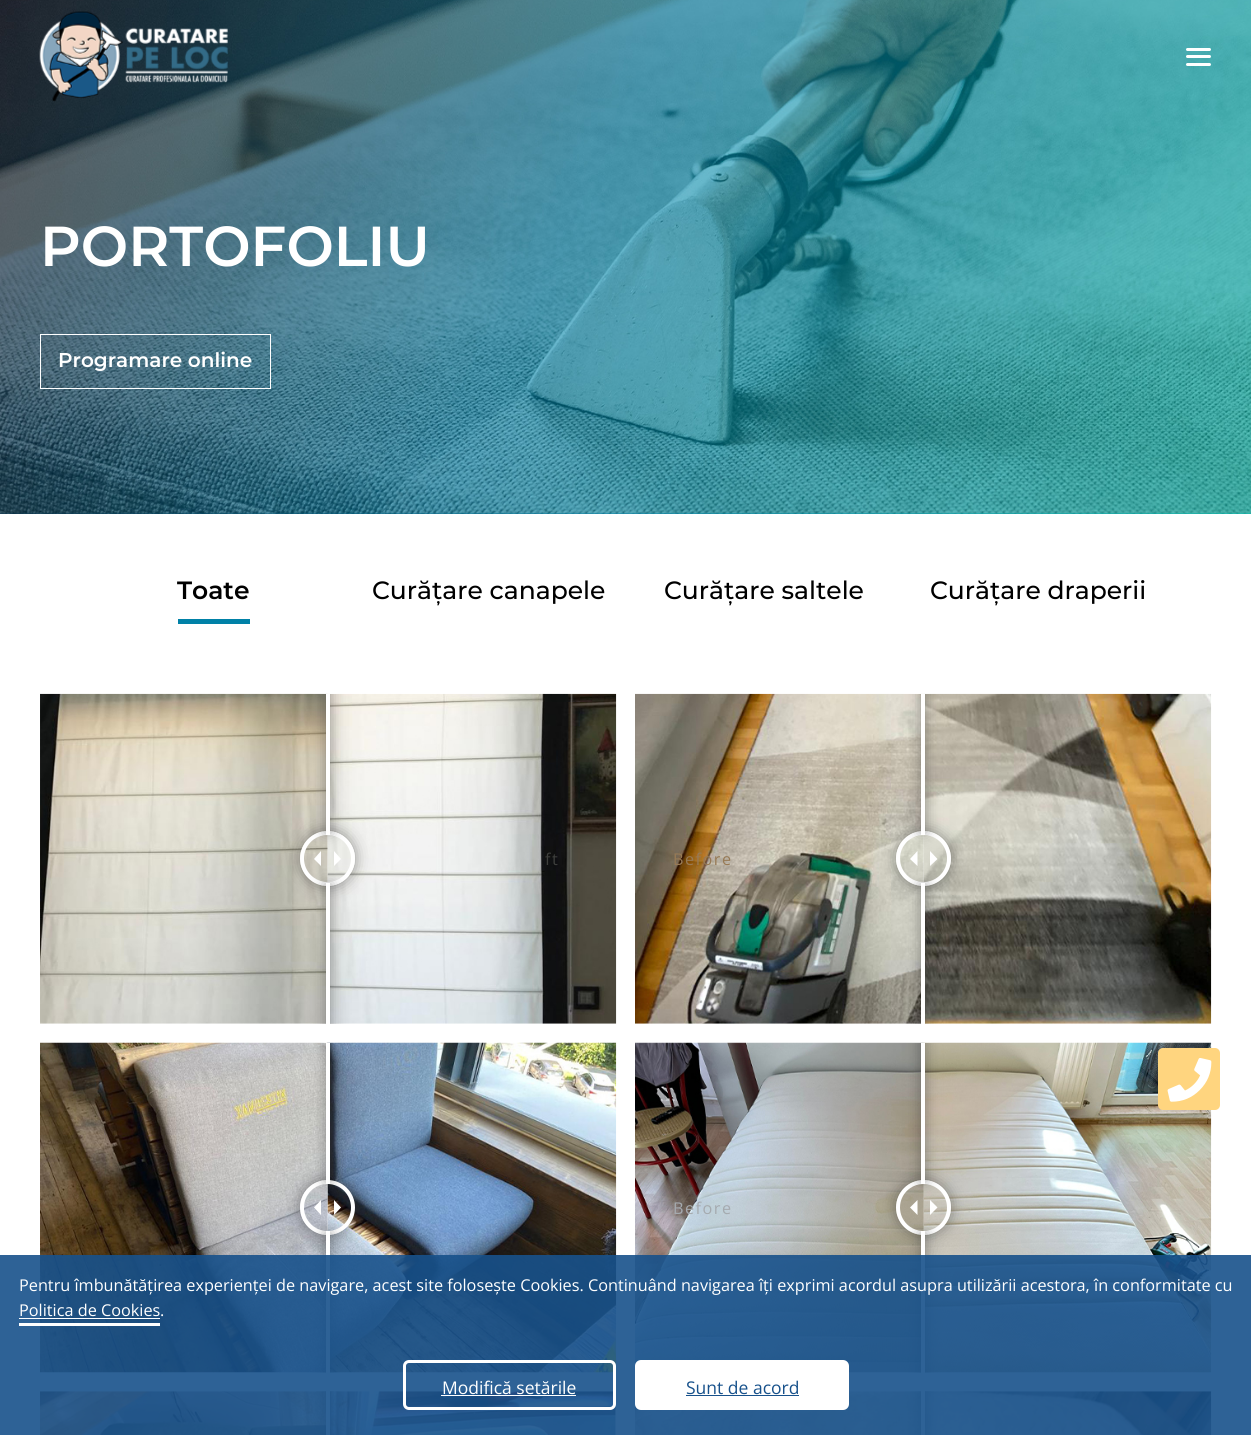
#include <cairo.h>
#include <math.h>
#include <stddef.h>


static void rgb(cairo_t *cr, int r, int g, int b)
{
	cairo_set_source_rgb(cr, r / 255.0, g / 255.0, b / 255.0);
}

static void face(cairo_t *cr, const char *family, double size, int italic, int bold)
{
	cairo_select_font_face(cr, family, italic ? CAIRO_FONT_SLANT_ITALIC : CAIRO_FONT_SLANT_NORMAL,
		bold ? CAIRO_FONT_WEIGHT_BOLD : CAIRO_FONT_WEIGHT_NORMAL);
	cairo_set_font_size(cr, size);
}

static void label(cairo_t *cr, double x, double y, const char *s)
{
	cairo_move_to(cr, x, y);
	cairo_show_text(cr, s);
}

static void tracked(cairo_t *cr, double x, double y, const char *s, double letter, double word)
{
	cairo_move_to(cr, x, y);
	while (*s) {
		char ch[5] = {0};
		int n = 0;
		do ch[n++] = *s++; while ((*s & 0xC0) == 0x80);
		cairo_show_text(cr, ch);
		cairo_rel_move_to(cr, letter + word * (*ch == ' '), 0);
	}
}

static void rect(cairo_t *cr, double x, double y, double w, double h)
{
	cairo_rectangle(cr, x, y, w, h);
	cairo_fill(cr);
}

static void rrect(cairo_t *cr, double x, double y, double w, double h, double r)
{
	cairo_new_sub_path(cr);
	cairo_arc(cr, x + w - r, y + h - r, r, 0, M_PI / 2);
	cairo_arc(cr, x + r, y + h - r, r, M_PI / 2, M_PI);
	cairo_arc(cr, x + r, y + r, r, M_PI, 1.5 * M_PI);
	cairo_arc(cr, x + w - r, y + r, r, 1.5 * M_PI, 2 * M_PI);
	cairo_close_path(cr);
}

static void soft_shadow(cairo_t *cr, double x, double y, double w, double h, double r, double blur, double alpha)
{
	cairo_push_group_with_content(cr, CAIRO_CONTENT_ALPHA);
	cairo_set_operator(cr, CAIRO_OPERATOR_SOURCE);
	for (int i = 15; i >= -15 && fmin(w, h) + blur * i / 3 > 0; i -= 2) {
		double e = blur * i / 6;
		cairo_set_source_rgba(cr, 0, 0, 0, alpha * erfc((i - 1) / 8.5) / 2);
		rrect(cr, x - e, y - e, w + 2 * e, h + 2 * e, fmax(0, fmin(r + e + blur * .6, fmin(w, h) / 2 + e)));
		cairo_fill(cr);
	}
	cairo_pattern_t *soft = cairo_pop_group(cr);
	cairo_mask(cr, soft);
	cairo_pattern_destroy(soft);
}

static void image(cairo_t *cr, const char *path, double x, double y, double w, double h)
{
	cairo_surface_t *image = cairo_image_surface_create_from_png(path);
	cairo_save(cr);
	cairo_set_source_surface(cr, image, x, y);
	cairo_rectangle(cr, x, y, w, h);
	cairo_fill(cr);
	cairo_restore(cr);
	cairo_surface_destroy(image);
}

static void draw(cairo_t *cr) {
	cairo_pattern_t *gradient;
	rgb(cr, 255, 255, 255);
	cairo_paint(cr);
	gradient = cairo_pattern_create_linear(1220, 573, 31, -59);
	cairo_pattern_add_color_stop_rgba(gradient, 0, 0, 0.737, 0.682, 1);
	cairo_pattern_add_color_stop_rgba(gradient, 0.4, 0, 0.506, 0.655, 1);
	cairo_pattern_add_color_stop_rgba(gradient, 1, 0.067, 0.098, 0.18, 1);
	cairo_set_source(cr, gradient);
	cairo_pattern_destroy(gradient);
	rect(cr, 0, 513, 1251, 1);
	image(cr, "image1.png", 0, 0, 1251, 514);
	image(cr, "image0.png", 39, 11, 189, 91);
	rgb(cr, 255, 255, 255);
	rrect(cr, 1186, 63, 25, 3, 1.5);
	cairo_fill(cr);
	rrect(cr, 1186, 48, 25, 3, 1.5);
	cairo_fill(cr);
	rrect(cr, 1186, 55, 25, 3, 1.5);
	cairo_fill(cr);
	image(cr, "image9.png", 327, 693, 290, 331);
	image(cr, "image8.png", 40, 693, 288, 331);
	cairo_save(cr);
	cairo_set_fill_rule(cr, CAIRO_FILL_RULE_EVEN_ODD);
	cairo_new_path(cr);
	cairo_move_to(cr, 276, 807);
	cairo_line_to(cr, 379, 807);
	cairo_line_to(cr, 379, 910);
	cairo_line_to(cr, 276, 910);
	cairo_close_path(cr);
	cairo_move_to(cr, 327.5, 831);
	cairo_curve_to(cr, 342.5, 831, 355, 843.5, 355, 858.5);
	cairo_curve_to(cr, 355, 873.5, 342.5, 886, 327.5, 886);
	cairo_curve_to(cr, 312.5, 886, 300, 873.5, 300, 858.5);
	cairo_curve_to(cr, 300, 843.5, 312.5, 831, 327.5, 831);
	cairo_close_path(cr);
	cairo_clip(cr);
	rgb(cr, 51, 51, 51);
	soft_shadow(cr, 300, 831, 55, 55, 27.5, 7.5, 0.5);
	cairo_restore(cr);
	cairo_arc(cr, 327.5, 858.5, 25.5, 0, 2 * M_PI);
	cairo_set_line_width(cr, 4);
	cairo_stroke(cr);
	cairo_new_path(cr);
	cairo_move_to(cr, 321, 851);
	cairo_line_to(cr, 321, 866);
	cairo_line_to(cr, 314, 859);
	cairo_close_path(cr);
	cairo_move_to(cr, 334, 866);
	cairo_line_to(cr, 334, 851);
	cairo_line_to(cr, 341, 859);
	cairo_close_path(cr);
	cairo_fill(cr);
	cairo_save(cr);
	cairo_rectangle(cr, 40, 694, 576, 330);
	cairo_clip(cr);
	rgb(cr, 51, 51, 51);
	soft_shadow(cr, 326, 886, 4, 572, 0, 7.5, 0.5);
	cairo_restore(cr);
	image(cr, "image3.png", 327, 1042, 290, 331);
	image(cr, "image2.png", 40, 1042, 288, 331);
	cairo_save(cr);
	cairo_set_fill_rule(cr, CAIRO_FILL_RULE_EVEN_ODD);
	cairo_new_path(cr);
	cairo_move_to(cr, 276, 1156);
	cairo_line_to(cr, 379, 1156);
	cairo_line_to(cr, 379, 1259);
	cairo_line_to(cr, 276, 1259);
	cairo_close_path(cr);
	cairo_move_to(cr, 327.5, 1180);
	cairo_curve_to(cr, 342.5, 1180, 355, 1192.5, 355, 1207.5);
	cairo_curve_to(cr, 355, 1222.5, 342.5, 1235, 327.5, 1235);
	cairo_curve_to(cr, 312.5, 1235, 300, 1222.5, 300, 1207.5);
	cairo_curve_to(cr, 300, 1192.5, 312.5, 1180, 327.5, 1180);
	cairo_close_path(cr);
	cairo_clip(cr);
	rgb(cr, 51, 51, 51);
	soft_shadow(cr, 300, 1180, 55, 55, 27.5, 7.5, 0.5);
	cairo_restore(cr);
	cairo_arc(cr, 327.5, 1207.5, 25.5, 0, 2 * M_PI);
	cairo_stroke(cr);
	cairo_new_path(cr);
	cairo_move_to(cr, 321, 1200);
	cairo_line_to(cr, 321, 1215);
	cairo_line_to(cr, 314, 1207.5);
	cairo_close_path(cr);
	cairo_move_to(cr, 334, 1215);
	cairo_line_to(cr, 334, 1200);
	cairo_line_to(cr, 341, 1207.5);
	cairo_close_path(cr);
	cairo_fill(cr);
	cairo_save(cr);
	cairo_rectangle(cr, 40, 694, 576, 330);
	cairo_clip(cr);
	rgb(cr, 51, 51, 51);
	soft_shadow(cr, 326, -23, 4, 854, 0, 7.5, 0.5);
	cairo_restore(cr);
	cairo_new_path(cr);
	cairo_move_to(cr, 326, -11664);
	cairo_line_to(cr, 326, 835);
	cairo_line_to(cr, 330, 835);
	cairo_line_to(cr, 330, 831);
	cairo_line_to(cr, 326, 831);
	cairo_close_path(cr);
	cairo_fill(cr);
	rect(cr, 326, 694, 4, 137);
	cairo_new_path(cr);
	cairo_move_to(cr, 326, 883);
	cairo_line_to(cr, 326, 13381);
	cairo_line_to(cr, 326, 886);
	cairo_line_to(cr, 330, 886);
	cairo_line_to(cr, 330, 883);
	cairo_close_path(cr);
	cairo_fill(cr);
	rect(cr, 326, 886, 4, 138);
	cairo_save(cr);
	cairo_rectangle(cr, 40, 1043, 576, 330);
	cairo_clip(cr);
	rgb(cr, 51, 51, 51);
	soft_shadow(cr, 326, -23, 4, 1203, 0, 7.5, 0.5);
	cairo_restore(cr);
	cairo_new_path(cr);
	cairo_move_to(cr, 326, -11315);
	cairo_line_to(cr, 326, 1184);
	cairo_line_to(cr, 330, 1184);
	cairo_line_to(cr, 330, 1180);
	cairo_line_to(cr, 326, 1180);
	cairo_close_path(cr);
	cairo_fill(cr);
	rect(cr, 326, 1043, 4, 137);
	cairo_save(cr);
	cairo_rectangle(cr, 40, 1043, 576, 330);
	cairo_clip(cr);
	rgb(cr, 51, 51, 51);
	soft_shadow(cr, 326, 1235, 4, 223, 0, 7.5, 0.5);
	cairo_restore(cr);
	cairo_new_path(cr);
	cairo_move_to(cr, 326, 1231);
	cairo_line_to(cr, 326, 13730);
	cairo_line_to(cr, 326, 1235);
	cairo_line_to(cr, 330, 1235);
	cairo_line_to(cr, 330, 1231);
	cairo_close_path(cr);
	cairo_fill(cr);
	rect(cr, 326, 1235, 4, 138);
	image(cr, "image4.png", 40, 1391, 286, 44);
	image(cr, "image5.png", 330, 1391, 286, 44);
	cairo_save(cr);
	cairo_rectangle(cr, 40, 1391, 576, 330);
	cairo_clip(cr);
	rgb(cr, 51, 51, 51);
	soft_shadow(cr, 326, -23, 4, 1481, 0, 7.5, 0.5);
	cairo_restore(cr);
	face(cr, "Montserrat SemiBold", 56.25, 0, 0);
	label(cr, 40, 266, "PORTOFOLIU");
	cairo_rectangle(cr, 40.5, 334.5, 230, 54);
	cairo_set_line_width(cr, 1);
	cairo_stroke(cr);
	face(cr, "Montserrat SemiBold", 20, 0, 0);
	label(cr, 58, 367, "Programare online");
	face(cr, "Montserrat SemiBold", 25, 0, 0);
	rgb(cr, 0, 0, 0);
	label(cr, 177, 599, "Toate");
	rgb(cr, 0, 129, 167);
	rect(cr, 178, 619, 72, 5);
	face(cr, "Montserrat Medium", 25, 0, 0);
	rgb(cr, 0, 0, 0);
	label(cr, 372, 599, "Curățare canapele");
	label(cr, 664, 599, "Curățare saltele");
	image(cr, "image11.png", 923, 693, 289, 331);
	image(cr, "image10.png", 635, 693, 289, 331);
	cairo_save(cr);
	cairo_set_fill_rule(cr, CAIRO_FILL_RULE_EVEN_ODD);
	cairo_new_path(cr);
	cairo_move_to(cr, 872, 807);
	cairo_line_to(cr, 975, 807);
	cairo_line_to(cr, 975, 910);
	cairo_line_to(cr, 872, 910);
	cairo_close_path(cr);
	cairo_move_to(cr, 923.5, 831);
	cairo_curve_to(cr, 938.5, 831, 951, 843.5, 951, 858.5);
	cairo_curve_to(cr, 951, 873.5, 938.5, 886, 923.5, 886);
	cairo_curve_to(cr, 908.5, 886, 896, 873.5, 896, 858.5);
	cairo_curve_to(cr, 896, 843.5, 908.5, 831, 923.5, 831);
	cairo_close_path(cr);
	cairo_clip(cr);
	rgb(cr, 51, 51, 51);
	soft_shadow(cr, 896, 831, 55, 55, 27.5, 7.5, 0.5);
	cairo_restore(cr);
	cairo_arc(cr, 923.5, 858.5, 25.5, 0, 2 * M_PI);
	rgb(cr, 255, 255, 255);
	cairo_set_line_width(cr, 4);
	cairo_stroke(cr);
	cairo_new_path(cr);
	cairo_move_to(cr, 917.5, 851);
	cairo_line_to(cr, 917.5, 866);
	cairo_line_to(cr, 910, 859);
	cairo_close_path(cr);
	cairo_move_to(cr, 930, 866);
	cairo_line_to(cr, 930, 851);
	cairo_line_to(cr, 937.5, 859);
	cairo_close_path(cr);
	cairo_fill(cr);
	cairo_save(cr);
	cairo_rectangle(cr, 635, 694, 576, 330);
	cairo_clip(cr);
	rgb(cr, 51, 51, 51);
	soft_shadow(cr, 921, 886, 4, 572, 0, 7.5, 0.5);
	cairo_restore(cr);
	image(cr, "image13.png", 923, 1042, 289, 331);
	image(cr, "image12.png", 635, 1042, 289, 331);
	cairo_save(cr);
	cairo_set_fill_rule(cr, CAIRO_FILL_RULE_EVEN_ODD);
	cairo_new_path(cr);
	cairo_move_to(cr, 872, 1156);
	cairo_line_to(cr, 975, 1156);
	cairo_line_to(cr, 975, 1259);
	cairo_line_to(cr, 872, 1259);
	cairo_close_path(cr);
	cairo_move_to(cr, 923.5, 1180);
	cairo_curve_to(cr, 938.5, 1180, 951, 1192.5, 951, 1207.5);
	cairo_curve_to(cr, 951, 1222.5, 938.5, 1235, 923.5, 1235);
	cairo_curve_to(cr, 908.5, 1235, 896, 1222.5, 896, 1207.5);
	cairo_curve_to(cr, 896, 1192.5, 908.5, 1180, 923.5, 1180);
	cairo_close_path(cr);
	cairo_clip(cr);
	rgb(cr, 51, 51, 51);
	soft_shadow(cr, 896, 1180, 55, 55, 27.5, 7.5, 0.5);
	cairo_restore(cr);
	cairo_arc(cr, 923.5, 1207.5, 25.5, 0, 2 * M_PI);
	cairo_stroke(cr);
	cairo_new_path(cr);
	cairo_move_to(cr, 917.5, 1200);
	cairo_line_to(cr, 917.5, 1215);
	cairo_line_to(cr, 910, 1207.5);
	cairo_close_path(cr);
	cairo_move_to(cr, 930, 1215);
	cairo_line_to(cr, 930, 1200);
	cairo_line_to(cr, 937.5, 1207.5);
	cairo_close_path(cr);
	cairo_fill(cr);
	cairo_save(cr);
	cairo_rectangle(cr, 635, 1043, 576, 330);
	cairo_clip(cr);
	rgb(cr, 51, 51, 51);
	soft_shadow(cr, 921, 1235, 4, 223, 0, 7.5, 0.5);
	cairo_restore(cr);
	image(cr, "image6.png", 635, 1391, 286, 44);
	image(cr, "image7.png", 925, 1391, 287, 44);
	cairo_save(cr);
	cairo_rectangle(cr, 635, 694, 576, 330);
	cairo_clip(cr);
	rgb(cr, 51, 51, 51);
	soft_shadow(cr, 921, -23, 4, 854, 0, 7.5, 0.5);
	cairo_restore(cr);
	cairo_new_path(cr);
	cairo_move_to(cr, 921, -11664);
	cairo_line_to(cr, 921, 835);
	cairo_line_to(cr, 925, 835);
	cairo_line_to(cr, 925, 831);
	cairo_line_to(cr, 921, 831);
	cairo_close_path(cr);
	cairo_fill(cr);
	rect(cr, 921, 694, 4, 137);
	cairo_new_path(cr);
	cairo_move_to(cr, 921, 883);
	cairo_line_to(cr, 921, 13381);
	cairo_line_to(cr, 921, 886);
	cairo_line_to(cr, 925, 886);
	cairo_line_to(cr, 925, 883);
	cairo_close_path(cr);
	cairo_fill(cr);
	rect(cr, 921, 886, 4, 138);
	cairo_save(cr);
	cairo_rectangle(cr, 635, 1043, 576, 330);
	cairo_clip(cr);
	rgb(cr, 51, 51, 51);
	soft_shadow(cr, 921, -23, 4, 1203, 0, 7.5, 0.5);
	cairo_restore(cr);
	cairo_new_path(cr);
	cairo_move_to(cr, 921, -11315);
	cairo_line_to(cr, 921, 1184);
	cairo_line_to(cr, 925, 1184);
	cairo_line_to(cr, 925, 1180);
	cairo_line_to(cr, 921, 1180);
	cairo_close_path(cr);
	cairo_fill(cr);
	rect(cr, 921, 1043, 4, 137);
	cairo_new_path(cr);
	cairo_move_to(cr, 921, 1231);
	cairo_line_to(cr, 921, 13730);
	cairo_line_to(cr, 921, 1235);
	cairo_line_to(cr, 925, 1235);
	cairo_line_to(cr, 925, 1231);
	cairo_close_path(cr);
	cairo_fill(cr);
	rect(cr, 921, 1235, 4, 138);
	cairo_save(cr);
	cairo_rectangle(cr, 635, 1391, 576, 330);
	cairo_clip(cr);
	rgb(cr, 51, 51, 51);
	soft_shadow(cr, 921, -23, 4, 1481, 0, 7.5, 0.5);
	cairo_restore(cr);
	rgb(cr, 0, 0, 0);
	label(cr, 930, 599, "Curățare draperii");
	rgb(cr, 255, 255, 255);
	rect(cr, 326, 1391, 4, 44);
	rect(cr, 921, 1391, 4, 44);
	face(cr, "Open Sans", 16.25, 0, 0);
	rgb(cr, 62, 63, 61);
	tracked(cr, 545, 865, "ft", 1.5, 0);
	rgb(cr, 151, 122, 85);
	tracked(cr, 673, 865, "Before", 1.5, 0);
	rgb(cr, 165, 170, 175);
	tracked(cr, 673, 1214, "Before", 1.5, 0);
	rgb(cr, 255, 213, 127);
	rrect(cr, 1158, 1048, 62, 62, 5);
	cairo_fill(cr);
	image(cr, "image14.png", 1167, 1058, 45, 44);
	cairo_set_source_rgba(cr, 0.094, 0.318, 0.545, 0.9);
	rect(cr, 0, 1255, 1251, 180);
	rgb(cr, 255, 255, 255);
	label(cr, 19, 1291, "Pentru îmbunătățirea experienței de navigare, acest site folosește Cookies. Continuând navigarea îți exprimi acordul asupra utilizării acestora, în conformitate cu");
	label(cr, 19, 1316, "Politica de Cookies");
	rect(cr, 19, 1318, 141, 1);
	rect(cr, 19, 1323, 141, 3);
	label(cr, 160, 1316, ".");
	rrect(cr, 404.5, 1361.5, 210, 47, 4.5);
	cairo_set_line_width(cr, 3);
	cairo_stroke(cr);
	face(cr, "Open Sans", 17.5, 0, 0);
	label(cr, 442, 1394, "Modifică setările");
	rect(cr, 441, 1395, 135, 1);
	rrect(cr, 636.5, 1361.5, 211, 47, 4.5);
	cairo_fill_preserve(cr);
	cairo_stroke(cr);
	rgb(cr, 23, 81, 139);
	label(cr, 686, 1394, "Sunt de acord");
	rect(cr, 686, 1395, 113, 1);
}

int main(void) {
	cairo_surface_t *surface = cairo_image_surface_create(CAIRO_FORMAT_RGB24, 1251, 1435);
	cairo_t *cr = cairo_create(surface);
	cairo_font_options_t *options = cairo_font_options_create();
	cairo_font_options_set_hint_metrics(options, CAIRO_HINT_METRICS_OFF);
	cairo_font_options_set_hint_style(options, CAIRO_HINT_STYLE_NONE);
	cairo_set_font_options(cr, options);
	cairo_set_miter_limit(cr, 4);
	draw(cr);
	cairo_surface_write_to_png(surface, "render.png");
	cairo_font_options_destroy(options);
	cairo_destroy(cr);
	cairo_surface_destroy(surface);
	return 0;
}
